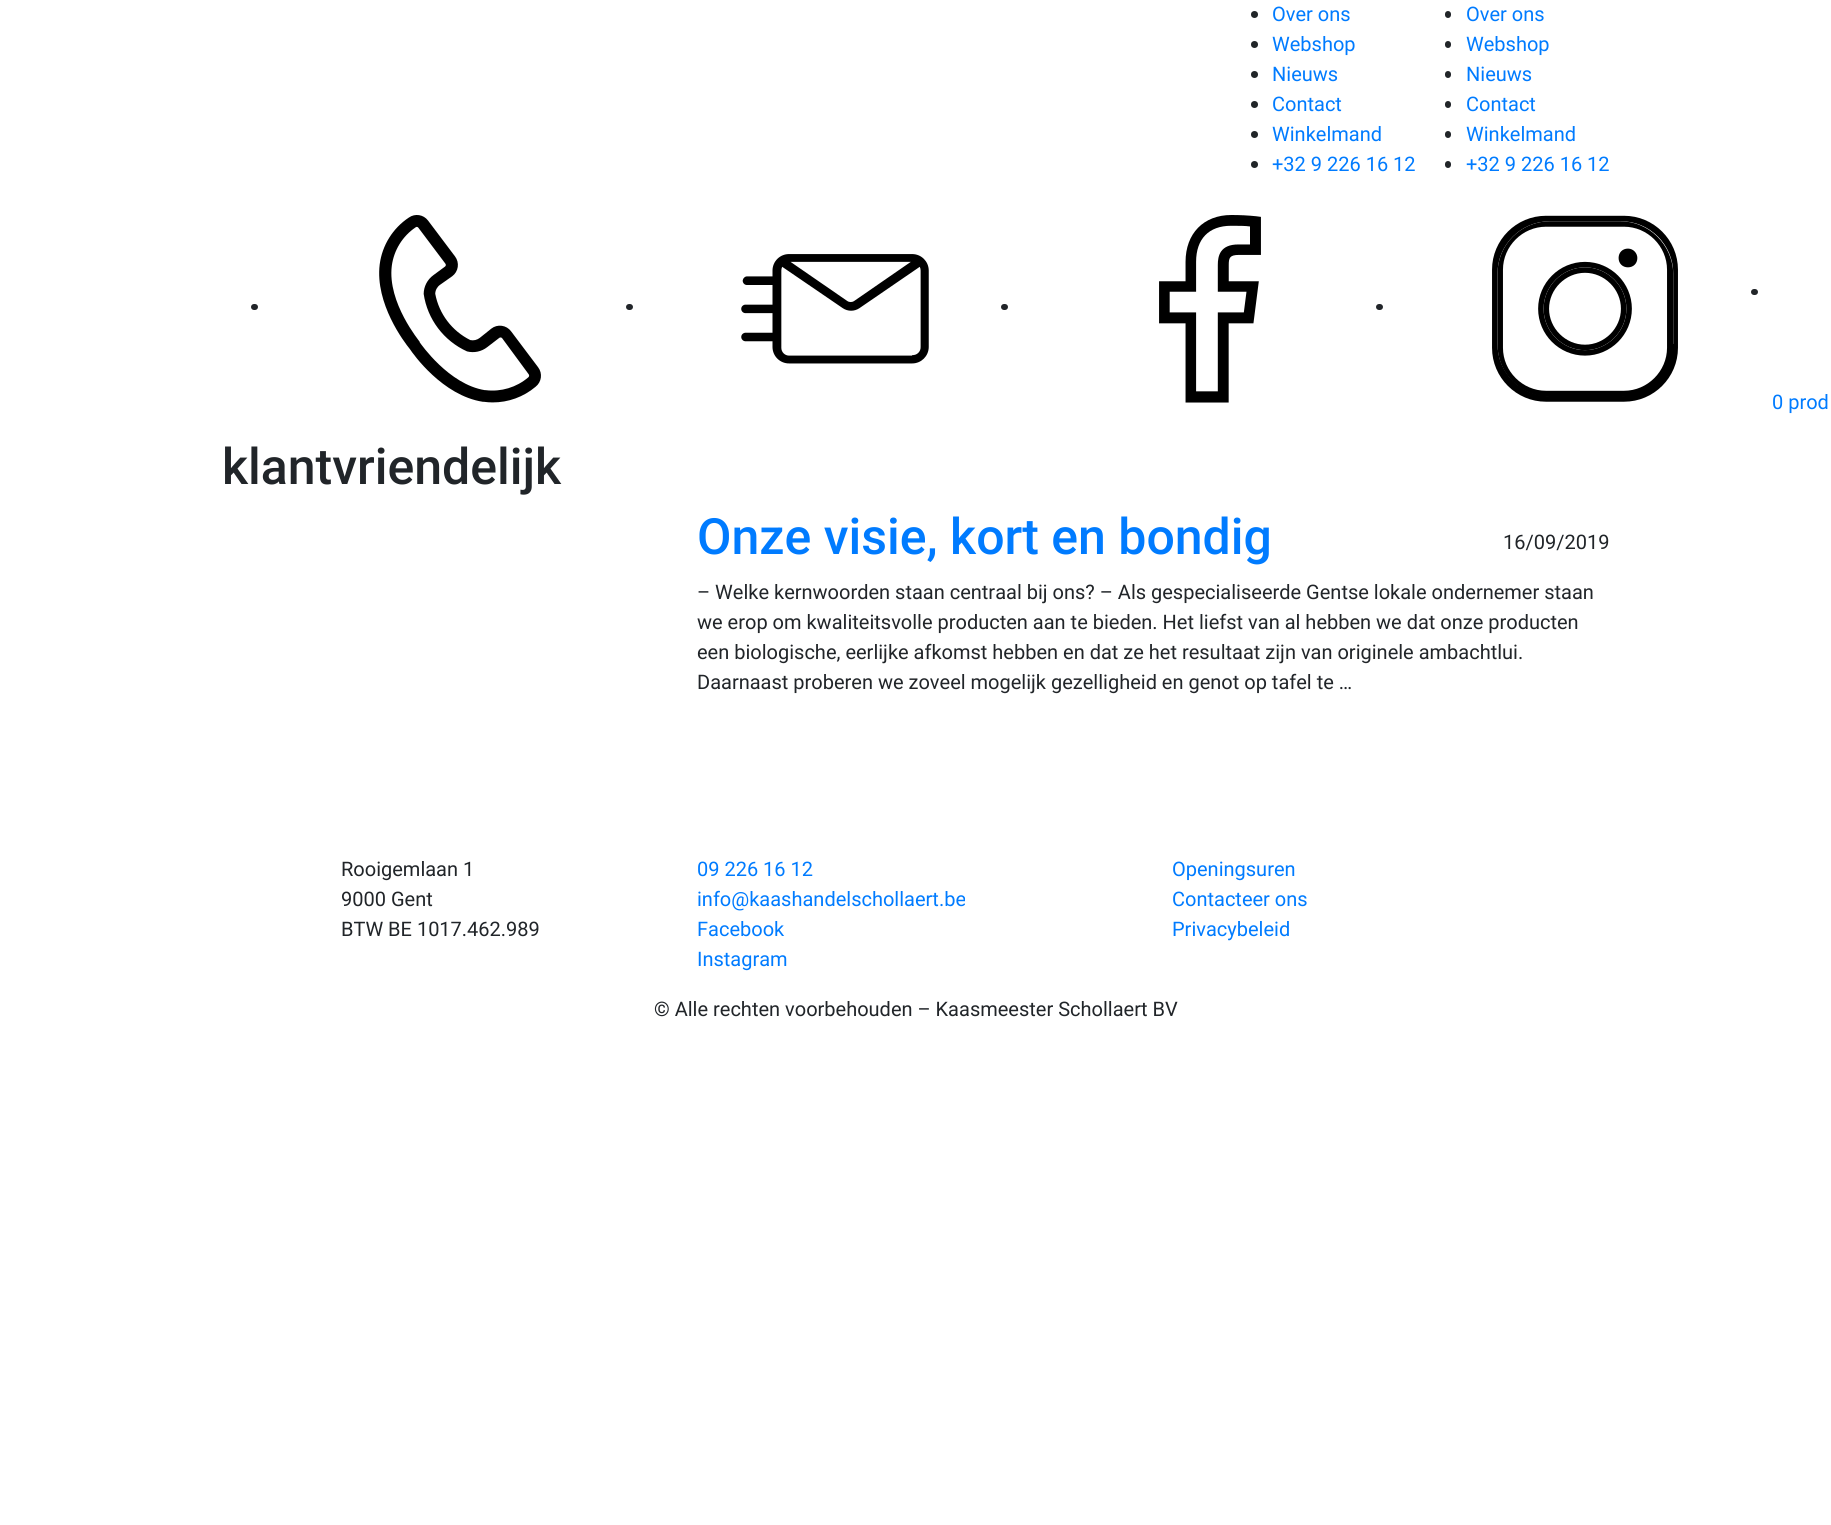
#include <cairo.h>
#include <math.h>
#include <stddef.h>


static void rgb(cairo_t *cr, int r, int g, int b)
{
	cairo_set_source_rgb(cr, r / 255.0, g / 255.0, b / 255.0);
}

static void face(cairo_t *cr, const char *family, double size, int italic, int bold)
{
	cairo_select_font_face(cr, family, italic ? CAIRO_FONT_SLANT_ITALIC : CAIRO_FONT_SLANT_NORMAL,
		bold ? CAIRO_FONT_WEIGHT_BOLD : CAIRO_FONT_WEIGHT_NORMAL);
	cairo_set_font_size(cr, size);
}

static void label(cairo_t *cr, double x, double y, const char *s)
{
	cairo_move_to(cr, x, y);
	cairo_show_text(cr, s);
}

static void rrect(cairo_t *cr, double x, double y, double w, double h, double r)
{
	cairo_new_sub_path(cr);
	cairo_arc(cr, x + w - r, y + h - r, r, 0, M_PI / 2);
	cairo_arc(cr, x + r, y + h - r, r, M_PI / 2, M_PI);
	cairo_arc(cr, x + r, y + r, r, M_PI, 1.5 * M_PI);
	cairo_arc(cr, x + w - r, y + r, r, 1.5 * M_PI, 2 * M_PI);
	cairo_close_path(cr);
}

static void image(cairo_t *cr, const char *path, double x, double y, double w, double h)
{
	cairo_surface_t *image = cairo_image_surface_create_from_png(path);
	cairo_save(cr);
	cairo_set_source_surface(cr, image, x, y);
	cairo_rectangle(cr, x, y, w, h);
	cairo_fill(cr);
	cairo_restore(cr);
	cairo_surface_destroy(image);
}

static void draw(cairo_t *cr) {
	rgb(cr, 255, 255, 255);
	cairo_paint(cr);
	rgb(cr, 33, 37, 41);
	cairo_arc(cr, 1254.5, 14.5, 3.5, 0, 2 * M_PI);
	cairo_fill(cr);
	face(cr, "Roboto", 20, 0, 0);
	rgb(cr, 0, 123, 255);
	label(cr, 1272, 21, "Over ons");
	rgb(cr, 33, 37, 41);
	cairo_new_path(cr);
	cairo_arc(cr, 1254.5, 44.5, 3.5, 0, 2 * M_PI);
	cairo_fill(cr);
	rgb(cr, 0, 123, 255);
	label(cr, 1272, 51, "Webshop");
	rgb(cr, 33, 37, 41);
	cairo_new_path(cr);
	cairo_arc(cr, 1254.5, 74.5, 3.5, 0, 2 * M_PI);
	cairo_fill(cr);
	rgb(cr, 0, 123, 255);
	label(cr, 1272, 81, "Nieuws");
	rgb(cr, 33, 37, 41);
	cairo_new_path(cr);
	cairo_arc(cr, 1254.5, 104.5, 3.5, 0, 2 * M_PI);
	cairo_fill(cr);
	rgb(cr, 0, 123, 255);
	label(cr, 1272, 111, "Contact");
	rgb(cr, 33, 37, 41);
	cairo_new_path(cr);
	cairo_arc(cr, 1254.5, 134.5, 3.5, 0, 2 * M_PI);
	cairo_fill(cr);
	rgb(cr, 0, 123, 255);
	label(cr, 1272, 141, "Winkelmand");
	rgb(cr, 33, 37, 41);
	cairo_new_path(cr);
	cairo_arc(cr, 1254.5, 164.5, 3.5, 0, 2 * M_PI);
	cairo_fill(cr);
	rgb(cr, 0, 123, 255);
	label(cr, 1272, 171, "+32 9 226 16 12");
	rgb(cr, 33, 37, 41);
	rrect(cr, 1445, 11, 6, 7, 3);
	cairo_fill(cr);
	rgb(cr, 0, 123, 255);
	label(cr, 1466, 21, "Over ons");
	rgb(cr, 33, 37, 41);
	rrect(cr, 1445, 41, 6, 7, 3);
	cairo_fill(cr);
	rgb(cr, 0, 123, 255);
	label(cr, 1466, 51, "Webshop");
	rgb(cr, 33, 37, 41);
	rrect(cr, 1445, 71, 6, 7, 3);
	cairo_fill(cr);
	rgb(cr, 0, 123, 255);
	label(cr, 1466, 81, "Nieuws");
	rgb(cr, 33, 37, 41);
	rrect(cr, 1445, 101, 6, 7, 3);
	cairo_fill(cr);
	rgb(cr, 0, 123, 255);
	label(cr, 1466, 111, "Contact");
	rgb(cr, 33, 37, 41);
	rrect(cr, 1445, 131, 6, 7, 3);
	cairo_fill(cr);
	rgb(cr, 0, 123, 255);
	label(cr, 1466, 141, "Winkelmand");
	rgb(cr, 33, 37, 41);
	rrect(cr, 1445, 161, 6, 7, 3);
	cairo_fill(cr);
	rgb(cr, 0, 123, 255);
	label(cr, 1466, 171, "+32 9 226 16 12");
	rgb(cr, 33, 37, 41);
	rrect(cr, 251, 304, 7, 6, 3);
	cairo_fill(cr);
	image(cr, "image0.png", 379, 215, 162, 188);
	rrect(cr, 626, 304, 7, 6, 3);
	cairo_fill(cr);
	image(cr, "image1.png", 741, 254, 188, 110);
	rrect(cr, 1001, 304, 7, 6, 3);
	cairo_fill(cr);
	image(cr, "image2.png", 1159, 215, 102, 188);
	rrect(cr, 1376, 304, 7, 6, 3);
	cairo_fill(cr);
	image(cr, "image3.png", 1492, 215, 186, 187);
	rrect(cr, 1751, 289, 7, 6, 3);
	cairo_fill(cr);
	rgb(cr, 0, 123, 255);
	label(cr, 1772, 409, "0 prod");
	face(cr, "Roboto Medium", 50, 0, 0);
	rgb(cr, 33, 37, 41);
	label(cr, 222, 484, "klantvriendelijk");
	rgb(cr, 0, 123, 255);
	label(cr, 697, 554, "Onze visie, kort en bondig");
	face(cr, "Roboto", 20, 0, 0);
	rgb(cr, 33, 37, 41);
	label(cr, 1503, 549, "16/09/2019");
	label(cr, 697, 599, "– Welke kernwoorden staan centraal bij ons? – Als gespecialiseerde Gentse lokale ondernemer staan");
	label(cr, 697, 629, "we erop om kwaliteitsvolle producten aan te bieden. Het liefst van al hebben we dat onze producten");
	label(cr, 697, 659, "een biologische, eerlijke afkomst hebben en dat ze het resultaat zijn van originele ambachtlui.");
	label(cr, 697, 689, "Daarnaast proberen we zoveel mogelijk gezelligheid en genot op tafel te …");
	label(cr, 341, 876, "Rooigemlaan 1");
	label(cr, 341, 906, "9000 Gent");
	label(cr, 341, 936, "BTW BE 1017.462.989");
	rgb(cr, 0, 123, 255);
	label(cr, 697, 876, "09 226 16 12");
	label(cr, 697, 906, "info@kaashandelschollaert.be");
	label(cr, 697, 936, "Facebook");
	label(cr, 697, 966, "Instagram");
	label(cr, 1172, 876, "Openingsuren");
	label(cr, 1172, 906, "Contacteer ons");
	label(cr, 1172, 936, "Privacybeleid");
	rgb(cr, 33, 37, 41);
	label(cr, 654, 1016, "© Alle rechten voorbehouden – Kaasmeester Schollaert BV");
}

int main(void) {
	cairo_surface_t *surface = cairo_image_surface_create(CAIRO_FORMAT_RGB24, 1831, 1525);
	cairo_t *cr = cairo_create(surface);
	cairo_font_options_t *options = cairo_font_options_create();
	cairo_font_options_set_hint_metrics(options, CAIRO_HINT_METRICS_OFF);
	cairo_font_options_set_hint_style(options, CAIRO_HINT_STYLE_NONE);
	cairo_set_font_options(cr, options);
	cairo_set_miter_limit(cr, 4);
	draw(cr);
	cairo_surface_write_to_png(surface, "render.png");
	cairo_font_options_destroy(options);
	cairo_destroy(cr);
	cairo_surface_destroy(surface);
	return 0;
}
